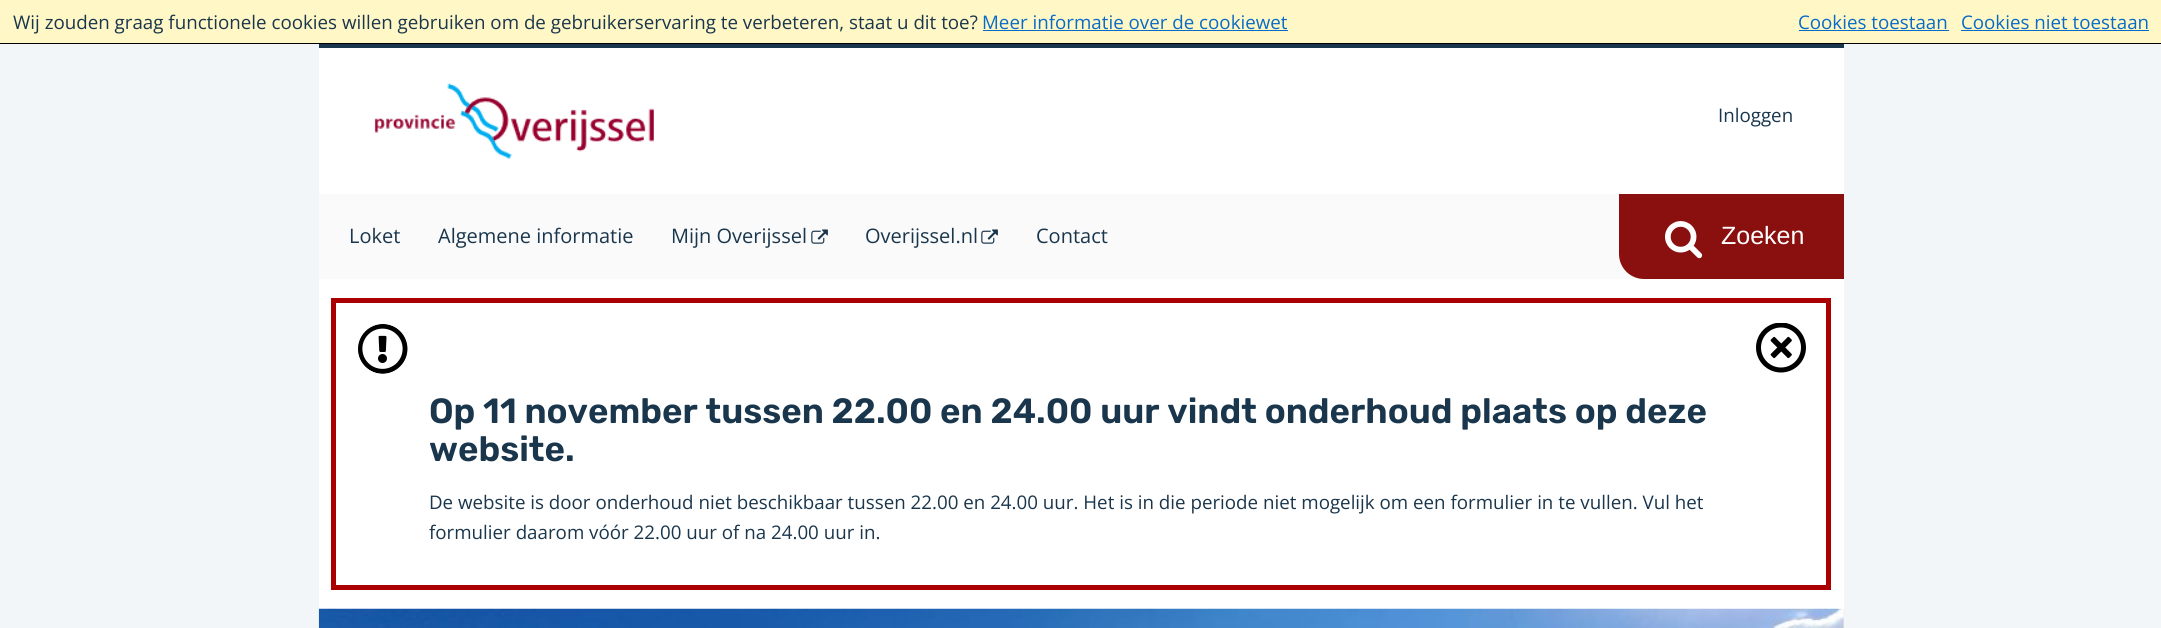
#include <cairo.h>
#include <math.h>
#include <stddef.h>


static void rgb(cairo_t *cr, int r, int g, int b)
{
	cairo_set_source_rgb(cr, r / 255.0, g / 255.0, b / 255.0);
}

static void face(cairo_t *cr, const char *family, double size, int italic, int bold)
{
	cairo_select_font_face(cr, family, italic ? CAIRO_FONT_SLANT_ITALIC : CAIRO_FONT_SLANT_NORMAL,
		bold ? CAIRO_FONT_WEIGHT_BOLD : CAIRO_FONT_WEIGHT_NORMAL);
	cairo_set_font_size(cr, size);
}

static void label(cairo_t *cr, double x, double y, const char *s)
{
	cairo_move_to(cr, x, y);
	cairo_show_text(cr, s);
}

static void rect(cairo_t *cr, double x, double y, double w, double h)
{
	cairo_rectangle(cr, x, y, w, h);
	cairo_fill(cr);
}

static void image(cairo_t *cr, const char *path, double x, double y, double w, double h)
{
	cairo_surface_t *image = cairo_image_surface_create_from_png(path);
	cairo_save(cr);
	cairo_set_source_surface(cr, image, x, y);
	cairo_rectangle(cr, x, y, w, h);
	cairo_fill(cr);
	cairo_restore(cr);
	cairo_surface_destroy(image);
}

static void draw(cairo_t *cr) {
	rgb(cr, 242, 246, 249);
	cairo_paint(cr);
	rgb(cr, 255, 247, 197);
	rect(cr, 0, 0, 2161, 43);
	rgb(cr, 0, 0, 0);
	rect(cr, 0, 43, 2161, 1);
	face(cr, "Open Sans", 18.75, 0, 0);
	rgb(cr, 26, 54, 76);
	label(cr, 13, 29, "Wij zouden graag functionele cookies willen gebruiken om de gebruikerservaring te verbeteren, staat u dit toe?");
	rgb(cr, 8, 107, 200);
	label(cr, 982, 29, "Meer informatie over de cookiewet");
	rect(cr, 983, 30, 305, 1);
	label(cr, 1798, 29, "Cookies toestaan");
	rect(cr, 1799, 30, 150, 1);
	label(cr, 1961, 29, "Cookies niet toestaan");
	rect(cr, 1961, 30, 188, 1);
	rgb(cr, 255, 255, 255);
	rect(cr, 319, 48, 1525, 561);
	rgb(cr, 26, 54, 76);
	rect(cr, 319, 44, 1525, 4);
	image(cr, "image0.png", 374, 83, 280, 76);
	label(cr, 1718, 122, "Inloggen");
	rgb(cr, 250, 250, 250);
	rect(cr, 319, 194, 1325, 85);
	rgb(cr, 137, 16, 15);
	cairo_new_path(cr);
	cairo_move_to(cr, 1620.5, 195.5);
	cairo_line_to(cr, 1842.5, 195.5);
	cairo_line_to(cr, 1842.5, 277.5);
	cairo_line_to(cr, 1644, 277.5);
	cairo_curve_to(cr, 1631, 277.5, 1620.5, 267, 1620.5, 254);
	cairo_close_path(cr);
	cairo_fill_preserve(cr);
	cairo_set_line_width(cr, 3);
	cairo_stroke(cr);
	image(cr, "image1.png", 1665, 221, 38, 38);
	face(cr, "Liberation Sans", 25, 0, 0);
	rgb(cr, 255, 255, 255);
	label(cr, 1721, 244, "Zoeken");
	face(cr, "Open Sans", 20, 0, 0);
	rgb(cr, 26, 54, 76);
	label(cr, 349, 243, "Loket");
	label(cr, 438, 243, "Algemene informatie");
	label(cr, 671, 243, "Mijn Overijssel");
	image(cr, "image2.png", 811, 229, 17, 15);
	label(cr, 865, 243, "Overijssel.nl");
	image(cr, "image2.png", 981, 229, 17, 15);
	label(cr, 1036, 243, "Contact");
	cairo_rectangle(cr, 333.5, 300.5, 1495, 287);
	rgb(cr, 170, 0, 0);
	cairo_set_line_width(cr, 5);
	cairo_stroke(cr);
	image(cr, "image3.png", 358, 324, 50, 50);
	image(cr, "image4.png", 1756, 323, 50, 50);
	face(cr, "Rubik SemiBold", 35, 0, 0);
	rgb(cr, 26, 54, 76);
	label(cr, 429, 423, "Op 11 november tussen 22.00 en 24.00 uur vindt onderhoud plaats op deze");
	label(cr, 429, 461, "website.");
	face(cr, "Open Sans", 18.75, 0, 0);
	label(cr, 429, 509, "De website is door onderhoud niet beschikbaar tussen 22.00 en 24.00 uur. Het is in die periode niet mogelijk om een formulier in te vullen. Vul het");
	label(cr, 429, 539, "formulier daarom vóór 22.00 uur of na 24.00 uur in.");
	rgb(cr, 236, 236, 236);
	rect(cr, 1843, 609, 1, 19);
	image(cr, "image5.png", 318, 608, 1526, 20);
}

int main(void) {
	cairo_surface_t *surface = cairo_image_surface_create(CAIRO_FORMAT_RGB24, 2161, 628);
	cairo_t *cr = cairo_create(surface);
	cairo_font_options_t *options = cairo_font_options_create();
	cairo_font_options_set_hint_metrics(options, CAIRO_HINT_METRICS_OFF);
	cairo_font_options_set_hint_style(options, CAIRO_HINT_STYLE_NONE);
	cairo_set_font_options(cr, options);
	cairo_set_miter_limit(cr, 4);
	draw(cr);
	cairo_surface_write_to_png(surface, "render.png");
	cairo_font_options_destroy(options);
	cairo_destroy(cr);
	cairo_surface_destroy(surface);
	return 0;
}
